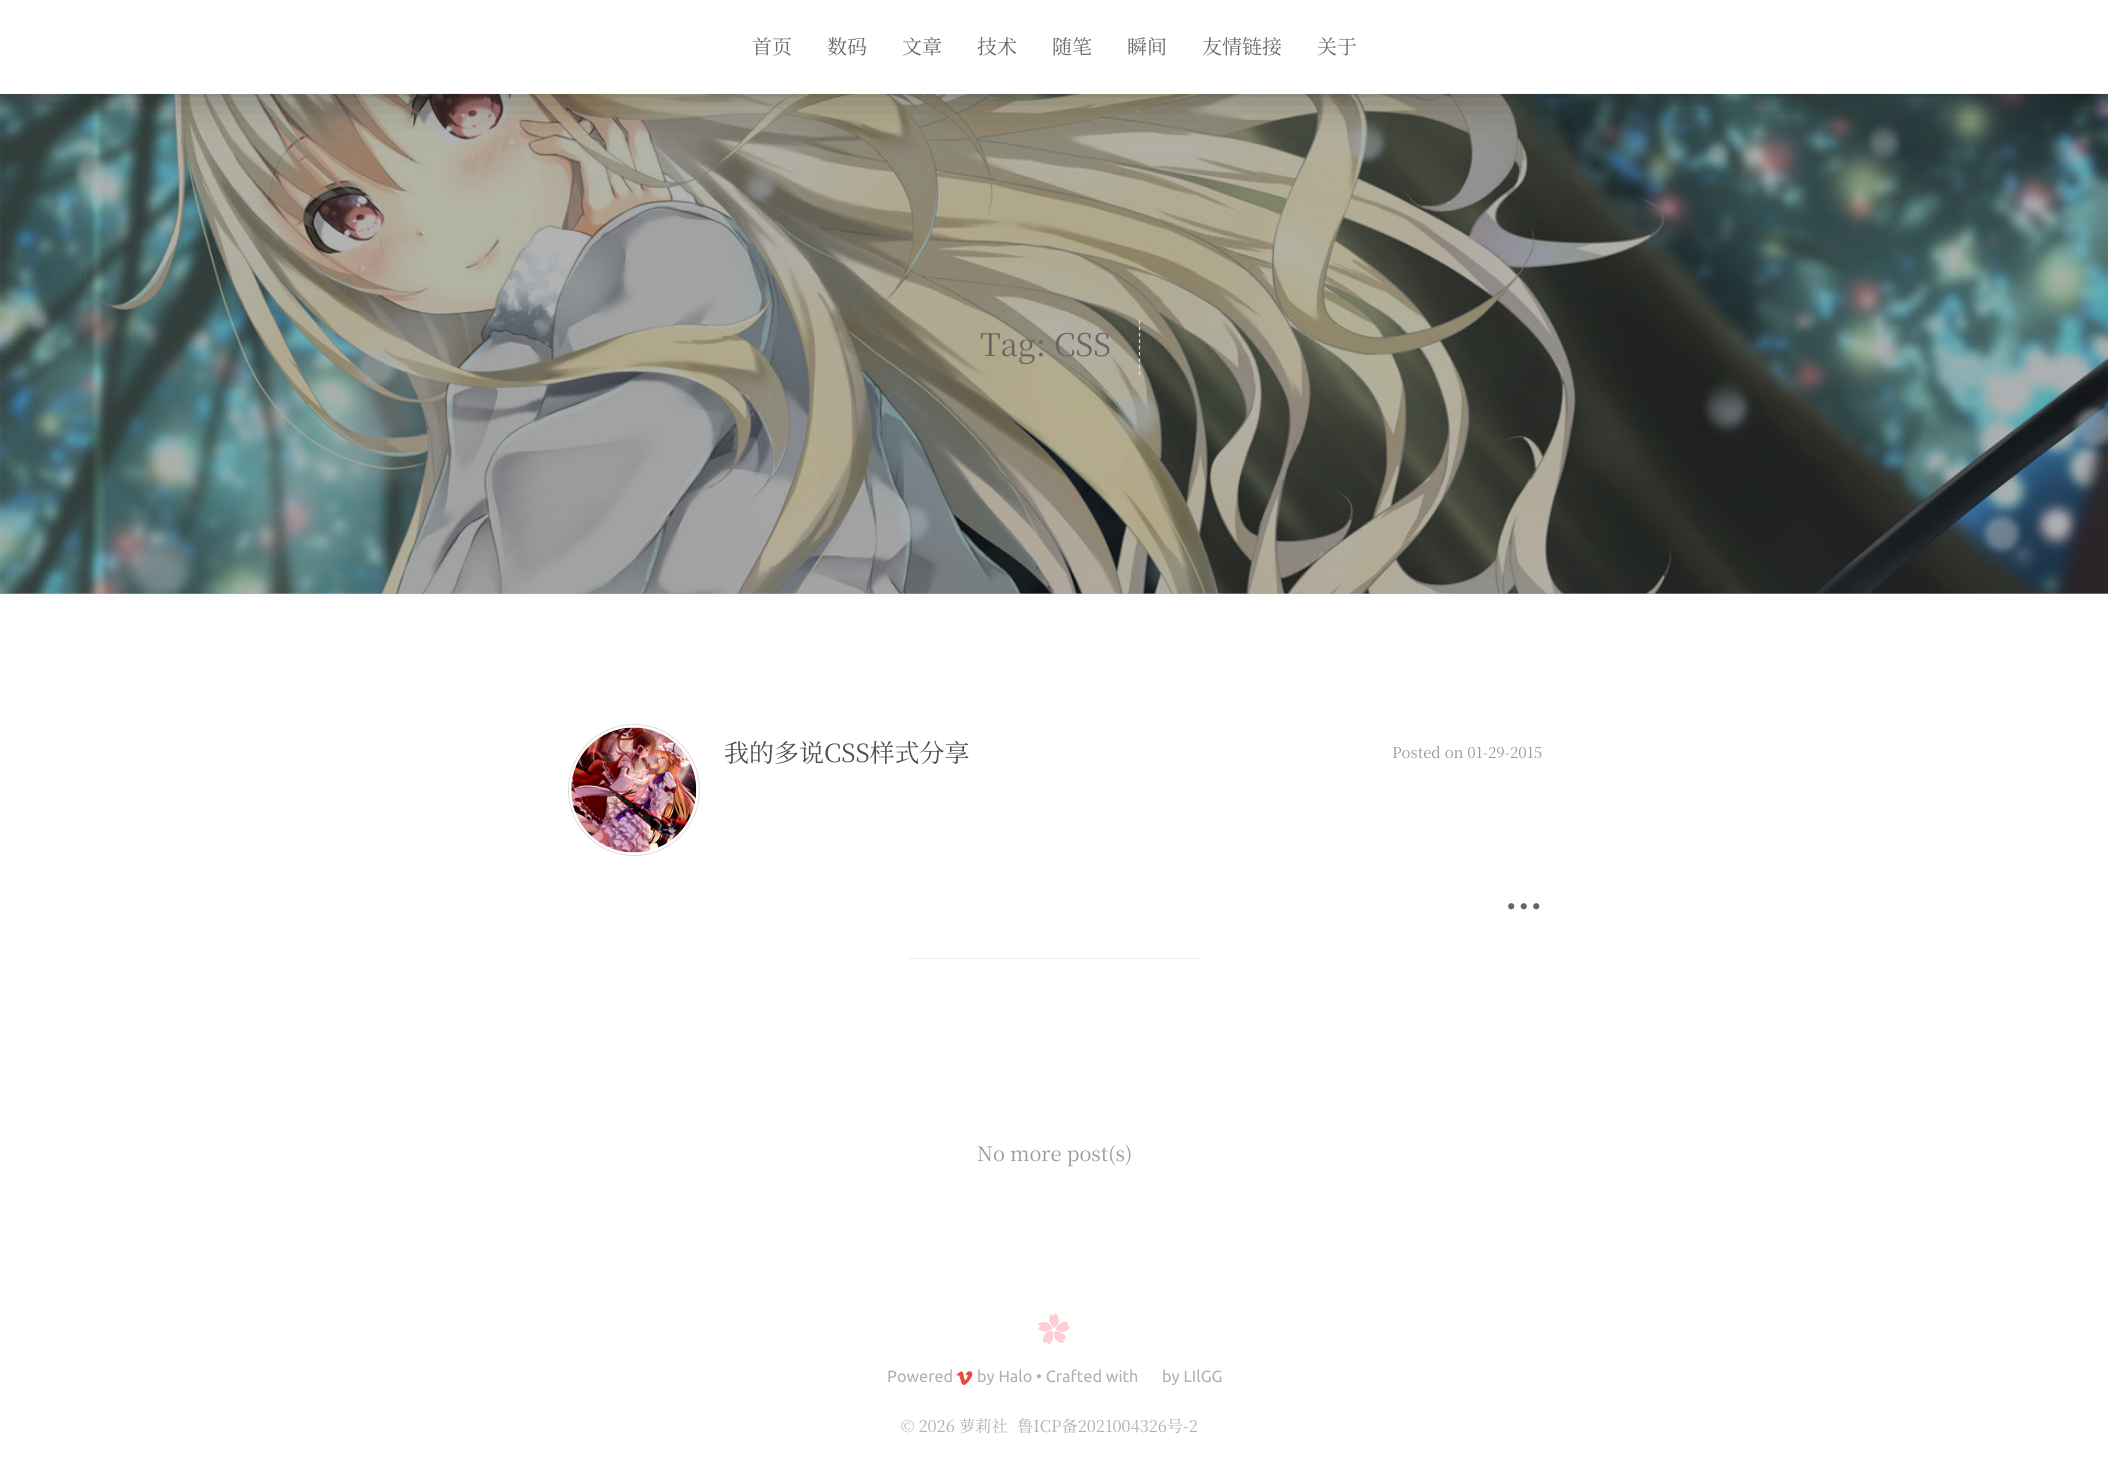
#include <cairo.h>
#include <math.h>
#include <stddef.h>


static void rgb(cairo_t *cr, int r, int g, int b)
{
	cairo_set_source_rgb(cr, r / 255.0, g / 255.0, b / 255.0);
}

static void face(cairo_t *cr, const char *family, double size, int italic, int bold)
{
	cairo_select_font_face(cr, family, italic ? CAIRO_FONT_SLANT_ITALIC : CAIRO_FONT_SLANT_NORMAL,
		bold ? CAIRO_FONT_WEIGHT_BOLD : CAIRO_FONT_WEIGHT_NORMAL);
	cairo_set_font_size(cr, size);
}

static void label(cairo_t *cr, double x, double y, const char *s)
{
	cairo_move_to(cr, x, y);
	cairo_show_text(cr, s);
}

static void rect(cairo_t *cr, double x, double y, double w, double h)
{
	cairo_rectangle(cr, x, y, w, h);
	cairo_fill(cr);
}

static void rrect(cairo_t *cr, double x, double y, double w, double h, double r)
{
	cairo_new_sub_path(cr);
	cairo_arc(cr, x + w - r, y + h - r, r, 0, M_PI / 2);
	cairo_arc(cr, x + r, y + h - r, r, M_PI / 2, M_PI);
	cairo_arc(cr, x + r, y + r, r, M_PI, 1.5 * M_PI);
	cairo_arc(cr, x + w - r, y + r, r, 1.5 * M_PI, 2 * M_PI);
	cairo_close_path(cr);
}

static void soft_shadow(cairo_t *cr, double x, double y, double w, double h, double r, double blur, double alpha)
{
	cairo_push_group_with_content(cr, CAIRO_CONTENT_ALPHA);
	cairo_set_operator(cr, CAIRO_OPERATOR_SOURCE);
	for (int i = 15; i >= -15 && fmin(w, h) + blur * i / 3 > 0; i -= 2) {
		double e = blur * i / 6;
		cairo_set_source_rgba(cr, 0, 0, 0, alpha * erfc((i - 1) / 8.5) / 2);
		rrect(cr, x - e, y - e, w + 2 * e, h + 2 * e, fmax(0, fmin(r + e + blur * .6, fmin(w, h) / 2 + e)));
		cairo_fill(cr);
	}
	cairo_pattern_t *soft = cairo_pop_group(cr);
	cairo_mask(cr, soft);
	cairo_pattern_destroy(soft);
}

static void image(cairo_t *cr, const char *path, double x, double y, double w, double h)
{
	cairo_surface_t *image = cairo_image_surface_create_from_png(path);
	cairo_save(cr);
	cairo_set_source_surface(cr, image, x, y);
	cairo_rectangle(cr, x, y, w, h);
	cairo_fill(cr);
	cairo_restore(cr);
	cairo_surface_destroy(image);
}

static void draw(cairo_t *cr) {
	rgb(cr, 255, 255, 255);
	cairo_paint(cr);
	rgb(cr, 179, 179, 179);
	rect(cr, 0, 593, 2108, 1);
	image(cr, "image0.png", 0, 93, 2108, 501);
	cairo_save(cr);
	cairo_set_fill_rule(cr, CAIRO_FILL_RULE_EVEN_ODD);
	cairo_new_path(cr);
	cairo_move_to(cr, 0, 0);
	cairo_line_to(cr, 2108, 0);
	cairo_line_to(cr, 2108, 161);
	cairo_line_to(cr, 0, 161);
	cairo_close_path(cr);
	cairo_move_to(cr, 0, 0);
	cairo_line_to(cr, 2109, 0);
	cairo_line_to(cr, 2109, 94);
	cairo_line_to(cr, 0, 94);
	cairo_close_path(cr);
	cairo_clip(cr);
	rgb(cr, 0, 0, 0);
	soft_shadow(cr, 10, 11, 2089, 74, 0, 25, 0.5);
	cairo_restore(cr);
	face(cr, "Noto Serif SC ExtraLight", 20, 0, 0);
	rgb(cr, 102, 102, 102);
	label(cr, 752, 54, "首页");
	label(cr, 827, 54, "数码");
	label(cr, 902, 54, "文章");
	label(cr, 977, 54, "技术");
	label(cr, 1052, 54, "随笔");
	label(cr, 1127, 54, "瞬间");
	label(cr, 1202, 54, "友情链接");
	label(cr, 1317, 54, "关于");
	face(cr, "Noto Serif SC ExtraLight", 31.25, 0, 0);
	label(cr, 980, 356, "Tag: CSS");
	cairo_new_path(cr);
	cairo_move_to(cr, 1139.5, 320);
	cairo_line_to(cr, 1139.5, 375);
	rgb(cr, 221, 221, 221);
	cairo_set_line_width(cr, 1.2);
	cairo_set_dash(cr, (double[]){3.75, 2.65}, 2, 0);
	cairo_stroke(cr);
	cairo_arc(cr, 634, 790, 65.5, 0, 2 * M_PI);
	cairo_set_line_width(cr, 1);
	cairo_set_dash(cr, NULL, 0, 0);
	cairo_stroke(cr);
	image(cr, "image1.png", 571, 727, 126, 126);
	face(cr, "Noto Serif SC ExtraLight", 25, 0, 0);
	rgb(cr, 80, 78, 78);
	label(cr, 724, 762, "我的多说CSS样式分享");
	face(cr, "Noto Serif SC ExtraLight", 15, 0, 0);
	rgb(cr, 153, 153, 153);
	label(cr, 1392, 758, "Posted on 01-29-2015");
	image(cr, "image2.png", 1508, 903, 32, 7);
	rgb(cr, 238, 238, 238);
	rect(cr, 909, 958, 292, 1);
	face(cr, "Noto Serif SC ExtraLight", 20, 0, 0);
	rgb(cr, 153, 153, 153);
	label(cr, 977, 1161, "No more post(s)");
	image(cr, "image3.png", 1038, 1313, 32, 32);
	face(cr, "Ubuntu", 16.25, 0, 0);
	rgb(cr, 176, 176, 176);
	label(cr, 887, 1382, "Powered");
	image(cr, "image4.png", 956, 1371, 17, 14);
	label(cr, 977, 1382, "by Halo • Crafted with");
	label(cr, 1162, 1382, "by LIlGG");
	face(cr, "Noto Serif SC ExtraLight", 16.25, 0, 0);
	label(cr, 901, 1432, "© 2026 萝莉社");
	label(cr, 1017, 1432, "鲁ICP备2021004326号-2");
}

int main(void) {
	cairo_surface_t *surface = cairo_image_surface_create(CAIRO_FORMAT_RGB24, 2108, 1469);
	cairo_t *cr = cairo_create(surface);
	cairo_font_options_t *options = cairo_font_options_create();
	cairo_font_options_set_hint_metrics(options, CAIRO_HINT_METRICS_OFF);
	cairo_font_options_set_hint_style(options, CAIRO_HINT_STYLE_NONE);
	cairo_set_font_options(cr, options);
	cairo_set_miter_limit(cr, 4);
	draw(cr);
	cairo_surface_write_to_png(surface, "render.png");
	cairo_font_options_destroy(options);
	cairo_destroy(cr);
	cairo_surface_destroy(surface);
	return 0;
}
